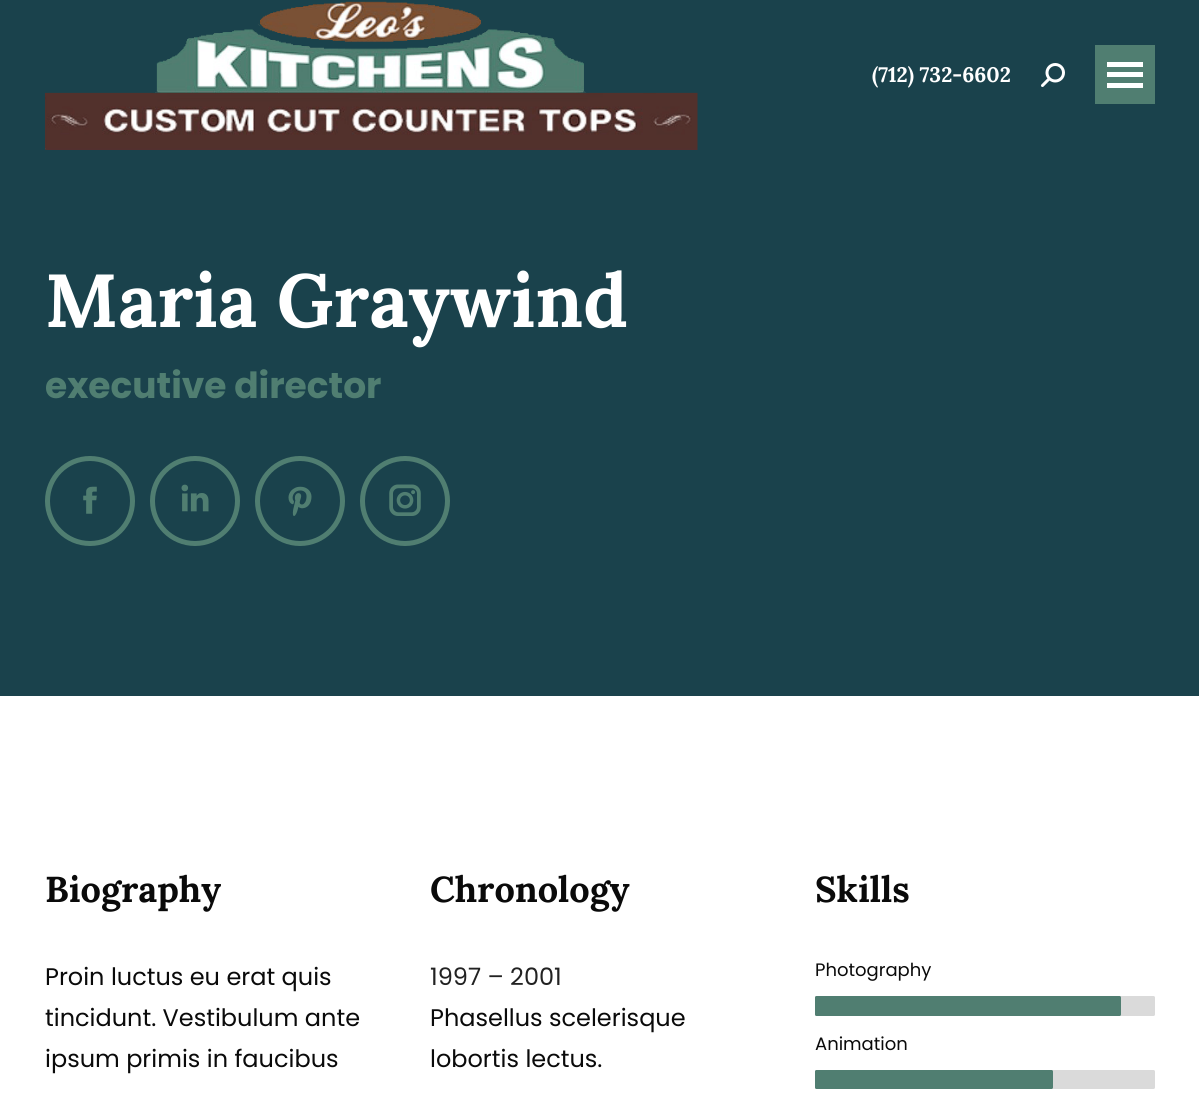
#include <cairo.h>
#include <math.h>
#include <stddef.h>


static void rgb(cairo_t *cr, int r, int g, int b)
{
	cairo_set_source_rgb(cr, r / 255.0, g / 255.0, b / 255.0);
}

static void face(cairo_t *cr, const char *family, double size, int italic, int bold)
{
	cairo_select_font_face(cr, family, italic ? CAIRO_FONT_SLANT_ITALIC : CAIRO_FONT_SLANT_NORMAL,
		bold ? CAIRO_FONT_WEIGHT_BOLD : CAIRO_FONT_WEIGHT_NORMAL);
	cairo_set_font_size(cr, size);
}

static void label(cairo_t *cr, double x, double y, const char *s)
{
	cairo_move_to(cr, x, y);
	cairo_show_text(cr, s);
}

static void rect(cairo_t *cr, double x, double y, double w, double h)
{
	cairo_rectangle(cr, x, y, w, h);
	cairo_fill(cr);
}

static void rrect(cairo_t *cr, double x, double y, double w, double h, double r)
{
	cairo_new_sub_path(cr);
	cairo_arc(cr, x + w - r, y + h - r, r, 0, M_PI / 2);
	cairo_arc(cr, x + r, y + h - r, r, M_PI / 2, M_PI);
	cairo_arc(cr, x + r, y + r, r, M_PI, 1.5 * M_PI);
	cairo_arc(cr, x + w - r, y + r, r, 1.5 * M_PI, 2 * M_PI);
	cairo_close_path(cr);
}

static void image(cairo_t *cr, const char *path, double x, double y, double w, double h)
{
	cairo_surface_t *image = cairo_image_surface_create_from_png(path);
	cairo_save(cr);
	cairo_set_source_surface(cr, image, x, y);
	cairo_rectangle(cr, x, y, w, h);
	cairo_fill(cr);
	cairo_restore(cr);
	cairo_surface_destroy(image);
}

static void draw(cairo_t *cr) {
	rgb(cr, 255, 255, 255);
	cairo_paint(cr);
	rgb(cr, 26, 66, 76);
	rect(cr, 0, 0, 1199, 696);
	image(cr, "image0.png", 45, 1, 653, 149);
	face(cr, "Lora", 21, 0, 1);
	rgb(cr, 255, 255, 255);
	label(cr, 872, 82, "(712) 732-6602");
	image(cr, "image1.png", 1041, 63, 24, 24);
	rgb(cr, 80, 126, 113);
	rect(cr, 1095, 45, 60, 59);
	rgb(cr, 255, 255, 255);
	rect(cr, 1107, 62, 36, 5);
	rect(cr, 1107, 72, 36, 5);
	rect(cr, 1107, 83, 36, 5);
	face(cr, "Lora", 75, 0, 1);
	label(cr, 45, 327, "Maria Graywind");
	face(cr, "Poppins", 36, 0, 1);
	rgb(cr, 80, 126, 113);
	label(cr, 45, 398, "executive director");
	cairo_new_path(cr);
	cairo_arc(cr, 90, 501, 42.5, 0, 2 * M_PI);
	cairo_set_line_width(cr, 5);
	cairo_stroke(cr);
	image(cr, "image2.png", 83, 486, 14, 28);
	cairo_arc(cr, 195, 501, 42.5, 0, 2 * M_PI);
	cairo_stroke(cr);
	image(cr, "image3.png", 181, 484, 28, 28);
	cairo_arc(cr, 300, 501, 42.5, 0, 2 * M_PI);
	cairo_stroke(cr);
	image(cr, "image4.png", 288, 486, 24, 30);
	cairo_arc(cr, 405, 501, 42.5, 0, 2 * M_PI);
	cairo_stroke(cr);
	image(cr, "image5.png", 389, 484, 32, 32);
	face(cr, "Lora", 36, 0, 1);
	rgb(cr, 10, 10, 10);
	label(cr, 45, 902, "Biography");
	face(cr, "Poppins", 24, 0, 0);
	label(cr, 45, 985, "Proin luctus eu erat quis");
	label(cr, 45, 1026, "tincidunt. Vestibulum ante");
	label(cr, 45, 1067, "ipsum primis in faucibus");
	face(cr, "Lora", 36, 0, 1);
	label(cr, 430, 902, "Chronology");
	face(cr, "Poppins", 24, 0, 0);
	rgb(cr, 34, 34, 34);
	label(cr, 430, 985, "1997 – 2001");
	rgb(cr, 10, 10, 10);
	label(cr, 430, 1026, "Phasellus scelerisque");
	label(cr, 430, 1067, "lobortis lectus.");
	face(cr, "Lora", 36, 0, 1);
	label(cr, 815, 902, "Skills");
	face(cr, "Poppins", 18, 0, 0);
	label(cr, 815, 976, "Photography");
	rgb(cr, 218, 218, 218);
	rrect(cr, 815, 996, 340, 20, 1.5);
	cairo_fill(cr);
	rgb(cr, 80, 126, 113);
	rrect(cr, 815, 996, 306, 20, 1.5);
	cairo_fill(cr);
	rgb(cr, 10, 10, 10);
	label(cr, 815, 1050, "Animation");
	rgb(cr, 218, 218, 218);
	rrect(cr, 815, 1070, 340, 19, 1.5);
	cairo_fill(cr);
	rgb(cr, 80, 126, 113);
	rrect(cr, 815, 1070, 238, 19, 1.5);
	cairo_fill(cr);
}

int main(void) {
	cairo_surface_t *surface = cairo_image_surface_create(CAIRO_FORMAT_RGB24, 1199, 1094);
	cairo_t *cr = cairo_create(surface);
	cairo_font_options_t *options = cairo_font_options_create();
	cairo_font_options_set_hint_metrics(options, CAIRO_HINT_METRICS_OFF);
	cairo_font_options_set_hint_style(options, CAIRO_HINT_STYLE_NONE);
	cairo_set_font_options(cr, options);
	cairo_set_miter_limit(cr, 4);
	draw(cr);
	cairo_surface_write_to_png(surface, "render.png");
	cairo_font_options_destroy(options);
	cairo_destroy(cr);
	cairo_surface_destroy(surface);
	return 0;
}
